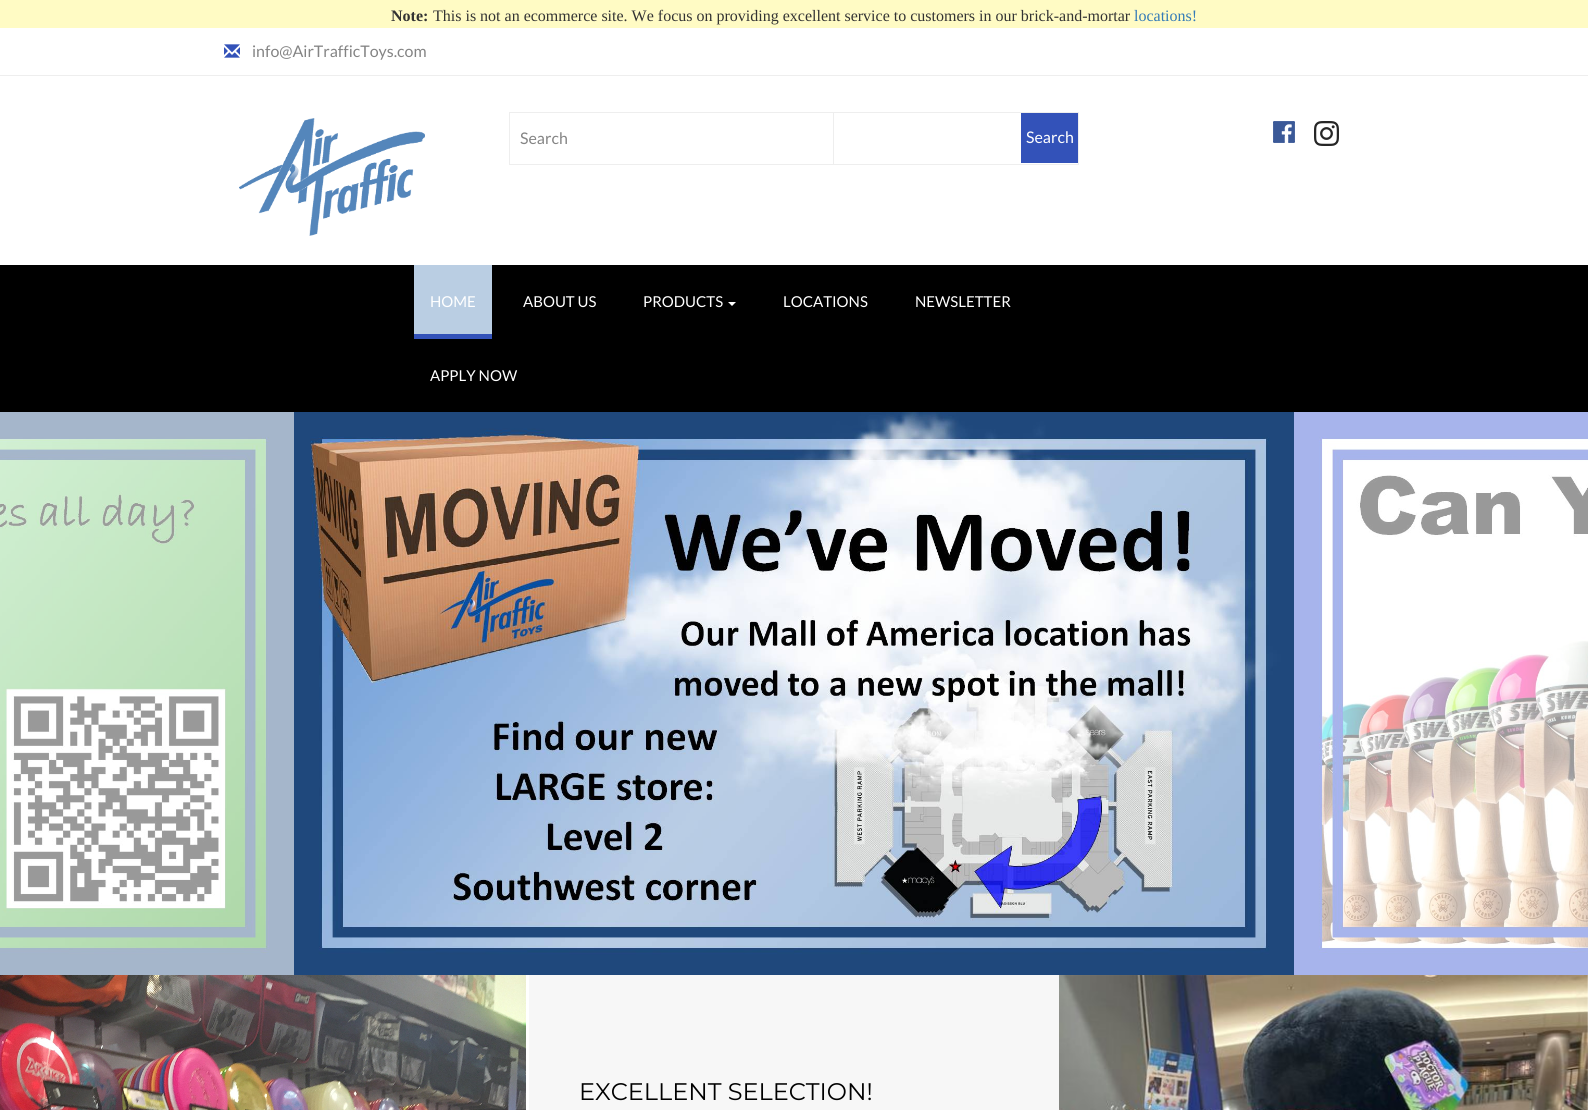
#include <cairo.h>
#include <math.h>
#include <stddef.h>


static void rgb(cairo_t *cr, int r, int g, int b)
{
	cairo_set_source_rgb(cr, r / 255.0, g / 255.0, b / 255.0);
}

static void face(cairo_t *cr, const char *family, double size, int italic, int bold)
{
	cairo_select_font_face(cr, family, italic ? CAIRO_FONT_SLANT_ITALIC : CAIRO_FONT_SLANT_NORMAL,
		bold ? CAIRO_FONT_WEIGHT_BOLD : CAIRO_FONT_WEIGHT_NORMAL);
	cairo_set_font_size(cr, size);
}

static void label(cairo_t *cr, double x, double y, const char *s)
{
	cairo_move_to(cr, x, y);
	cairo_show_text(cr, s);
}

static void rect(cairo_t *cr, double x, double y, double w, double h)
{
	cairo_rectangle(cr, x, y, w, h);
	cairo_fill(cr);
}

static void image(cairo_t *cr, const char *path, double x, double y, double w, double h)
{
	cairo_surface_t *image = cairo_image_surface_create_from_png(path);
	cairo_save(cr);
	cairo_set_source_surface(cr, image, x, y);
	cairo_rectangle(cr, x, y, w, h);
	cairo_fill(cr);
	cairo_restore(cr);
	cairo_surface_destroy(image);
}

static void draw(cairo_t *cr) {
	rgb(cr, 255, 255, 255);
	cairo_paint(cr);
	rgb(cr, 255, 251, 196);
	rect(cr, 0, 0, 1588, 28);
	face(cr, "Liberation Serif", 16, 0, 1);
	rgb(cr, 51, 51, 51);
	label(cr, 391, 21, "Note:");
	face(cr, "Liberation Serif", 16, 0, 0);
	label(cr, 433, 21, "This is not an ecommerce site. We focus on providing excellent service to customers in our brick-and-mortar");
	rgb(cr, 51, 122, 183);
	label(cr, 1134, 21, "locations!");
	rgb(cr, 238, 238, 238);
	rect(cr, 0, 75, 1588, 1);
	image(cr, "image0.png", 224, 44, 16, 14);
	face(cr, "Lato", 16, 0, 0);
	rgb(cr, 132, 132, 132);
	label(cr, 252, 57, "info@AirTrafficToys.com");
	image(cr, "image1.png", 239, 118, 186, 118);
	cairo_rectangle(cr, 509.5, 112.5, 569, 52);
	rgb(cr, 238, 238, 238);
	cairo_set_line_width(cr, 1);
	cairo_stroke(cr);
	rect(cr, 833, 113, 1, 51);
	rgb(cr, 132, 132, 132);
	label(cr, 520, 144, "Search");
	rgb(cr, 51, 82, 185);
	rect(cr, 1021, 113, 57, 50);
	rgb(cr, 255, 255, 255);
	label(cr, 1026, 143, "Search");
	image(cr, "image2.png", 1273, 121, 22, 22);
	image(cr, "image3.png", 1314, 121, 25, 25);
	rgb(cr, 0, 0, 0);
	rect(cr, 0, 265, 1588, 147);
	rgb(cr, 186, 206, 227);
	rect(cr, 414, 265, 78, 69);
	face(cr, "Lato", 15, 0, 0);
	rgb(cr, 255, 255, 255);
	label(cr, 430, 307, "HOME");
	rgb(cr, 51, 82, 185);
	rect(cr, 414, 334, 78, 5);
	rgb(cr, 255, 255, 255);
	label(cr, 523, 307, "ABOUT US");
	label(cr, 643, 307, "PRODUCTS");
	cairo_new_path(cr);
	cairo_move_to(cr, 728, 302);
	cairo_line_to(cr, 736, 302);
	cairo_line_to(cr, 732, 306);
	cairo_close_path(cr);
	cairo_fill(cr);
	label(cr, 783, 307, "LOCATIONS");
	label(cr, 915, 307, "NEWSLETTER");
	label(cr, 430, 381, "APPLY NOW");
	image(cr, "image4.png", 0, 412, 294, 563);
	image(cr, "image5.png", 294, 412, 1000, 563);
	image(cr, "image6.png", 1294, 412, 294, 563);
	image(cr, "image7.png", 0, 975, 526, 135);
	rgb(cr, 247, 247, 247);
	rect(cr, 529, 975, 530, 135);
	face(cr, "Montserrat", 24, 0, 0);
	rgb(cr, 0, 0, 0);
	label(cr, 579, 1100, "EXCELLENT SELECTION!");
	image(cr, "image8.png", 1059, 975, 529, 135);
}

int main(void) {
	cairo_surface_t *surface = cairo_image_surface_create(CAIRO_FORMAT_RGB24, 1588, 1110);
	cairo_t *cr = cairo_create(surface);
	cairo_font_options_t *options = cairo_font_options_create();
	cairo_font_options_set_hint_metrics(options, CAIRO_HINT_METRICS_OFF);
	cairo_font_options_set_hint_style(options, CAIRO_HINT_STYLE_NONE);
	cairo_set_font_options(cr, options);
	cairo_set_miter_limit(cr, 4);
	draw(cr);
	cairo_surface_write_to_png(surface, "render.png");
	cairo_font_options_destroy(options);
	cairo_destroy(cr);
	cairo_surface_destroy(surface);
	return 0;
}
